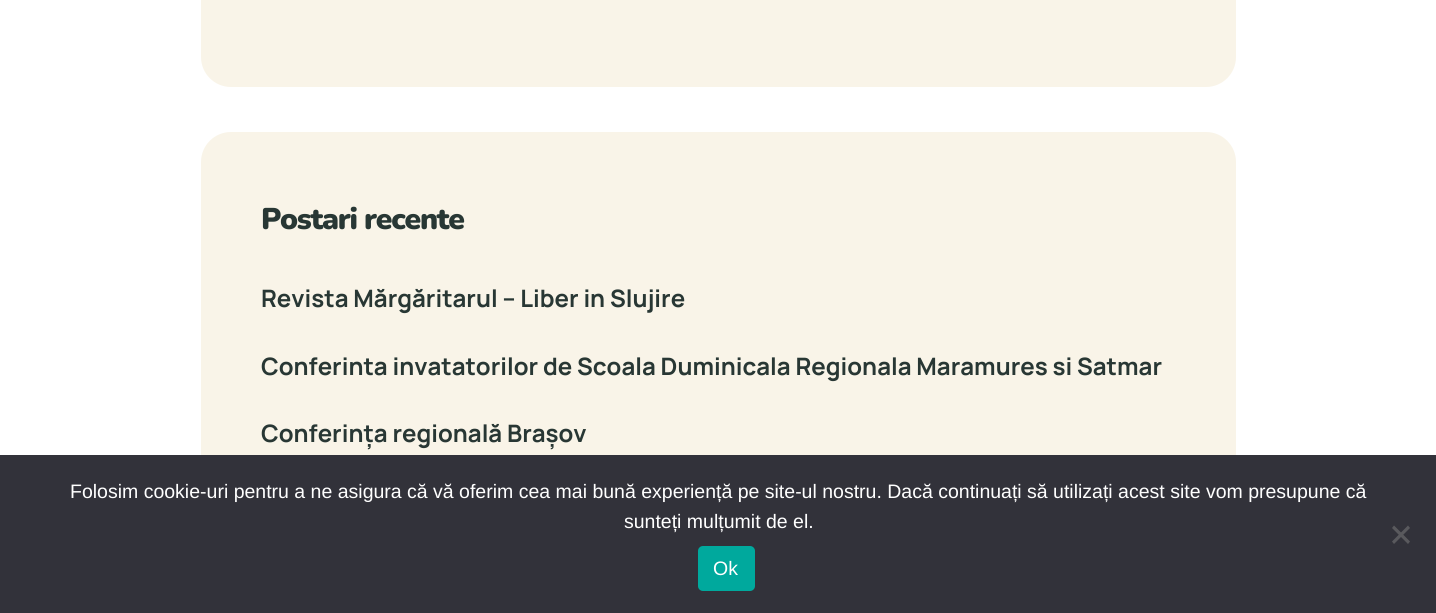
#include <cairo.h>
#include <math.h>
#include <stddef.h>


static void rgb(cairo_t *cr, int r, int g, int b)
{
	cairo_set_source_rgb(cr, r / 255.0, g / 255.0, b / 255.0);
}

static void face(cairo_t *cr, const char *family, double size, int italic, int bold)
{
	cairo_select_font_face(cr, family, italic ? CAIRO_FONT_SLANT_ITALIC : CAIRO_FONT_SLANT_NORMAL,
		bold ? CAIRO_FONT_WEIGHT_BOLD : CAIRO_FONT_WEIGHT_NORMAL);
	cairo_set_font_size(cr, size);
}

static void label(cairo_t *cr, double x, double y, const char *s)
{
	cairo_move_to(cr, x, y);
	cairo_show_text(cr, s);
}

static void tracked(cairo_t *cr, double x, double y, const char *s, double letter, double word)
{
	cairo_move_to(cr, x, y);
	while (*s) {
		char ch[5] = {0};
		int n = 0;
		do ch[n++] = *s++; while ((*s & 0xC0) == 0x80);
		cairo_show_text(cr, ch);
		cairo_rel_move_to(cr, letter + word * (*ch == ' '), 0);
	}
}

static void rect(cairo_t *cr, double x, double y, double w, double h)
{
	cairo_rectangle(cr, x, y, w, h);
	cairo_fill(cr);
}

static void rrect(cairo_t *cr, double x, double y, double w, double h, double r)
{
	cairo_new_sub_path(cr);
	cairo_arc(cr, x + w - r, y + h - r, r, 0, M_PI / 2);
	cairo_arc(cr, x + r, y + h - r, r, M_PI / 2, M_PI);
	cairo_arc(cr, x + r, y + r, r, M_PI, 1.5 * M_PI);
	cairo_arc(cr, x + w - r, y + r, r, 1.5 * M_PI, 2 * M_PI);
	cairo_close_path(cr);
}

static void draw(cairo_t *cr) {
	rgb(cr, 255, 255, 255);
	cairo_paint(cr);
	rgb(cr, 249, 244, 232);
	rrect(cr, 201, -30, 1035, 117, 30);
	cairo_fill(cr);
	rrect(cr, 201, 132, 1035, 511, 30);
	cairo_fill(cr);
	face(cr, "Nunito Black", 30, 0, 0);
	rgb(cr, 40, 55, 52);
	tracked(cr, 261, 229, "Postari recente", -1.25, 0);
	face(cr, "Manrope", 24, 0, 1);
	label(cr, 261, 307, "Revista Mărgăritarul – Liber in Slujire");
	label(cr, 261, 375, "Conferinta invatatorilor de Scoala Duminicala Regionala Maramures si Satmar");
	label(cr, 261, 442, "Conferința regională Brașov");
	rgb(cr, 50, 50, 58);
	rect(cr, 0, 455, 1436, 158);
	face(cr, "Liberation Sans", 19.5, 0, 0);
	rgb(cr, 255, 255, 255);
	label(cr, 70, 498, "Folosim cookie-uri pentru a ne asigura că vă oferim cea mai bună experiență pe site-ul nostru. Dacă continuați să utilizați acest site vom presupune că");
	label(cr, 624, 528, "sunteți mulțumit de el.");
	rgb(cr, 89, 89, 93);
	cairo_new_path(cr);
	cairo_move_to(cr, 1408, 525.5);
	cairo_line_to(cr, 1410, 528);
	cairo_line_to(cr, 1394, 544);
	cairo_line_to(cr, 1392, 541.5);
	cairo_close_path(cr);
	cairo_fill(cr);
	cairo_new_path(cr);
	cairo_move_to(cr, 1392, 528);
	cairo_line_to(cr, 1394, 525.5);
	cairo_line_to(cr, 1410, 541.5);
	cairo_line_to(cr, 1408, 544);
	cairo_close_path(cr);
	cairo_fill(cr);
	rgb(cr, 0, 169, 157);
	rrect(cr, 698, 546, 57, 45, 5);
	cairo_fill(cr);
	rgb(cr, 255, 255, 255);
	label(cr, 713, 575, "Ok");
}

int main(void) {
	cairo_surface_t *surface = cairo_image_surface_create(CAIRO_FORMAT_RGB24, 1436, 613);
	cairo_t *cr = cairo_create(surface);
	cairo_font_options_t *options = cairo_font_options_create();
	cairo_font_options_set_hint_metrics(options, CAIRO_HINT_METRICS_OFF);
	cairo_font_options_set_hint_style(options, CAIRO_HINT_STYLE_NONE);
	cairo_set_font_options(cr, options);
	cairo_set_miter_limit(cr, 4);
	draw(cr);
	cairo_surface_write_to_png(surface, "render.png");
	cairo_font_options_destroy(options);
	cairo_destroy(cr);
	cairo_surface_destroy(surface);
	return 0;
}
